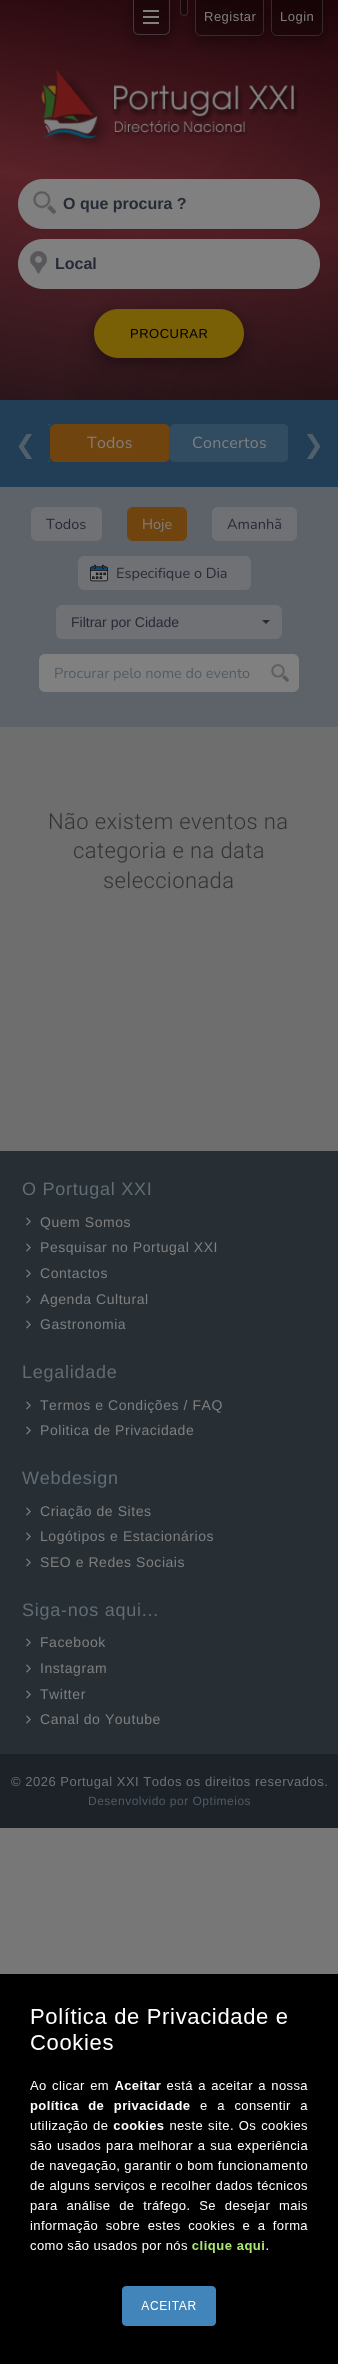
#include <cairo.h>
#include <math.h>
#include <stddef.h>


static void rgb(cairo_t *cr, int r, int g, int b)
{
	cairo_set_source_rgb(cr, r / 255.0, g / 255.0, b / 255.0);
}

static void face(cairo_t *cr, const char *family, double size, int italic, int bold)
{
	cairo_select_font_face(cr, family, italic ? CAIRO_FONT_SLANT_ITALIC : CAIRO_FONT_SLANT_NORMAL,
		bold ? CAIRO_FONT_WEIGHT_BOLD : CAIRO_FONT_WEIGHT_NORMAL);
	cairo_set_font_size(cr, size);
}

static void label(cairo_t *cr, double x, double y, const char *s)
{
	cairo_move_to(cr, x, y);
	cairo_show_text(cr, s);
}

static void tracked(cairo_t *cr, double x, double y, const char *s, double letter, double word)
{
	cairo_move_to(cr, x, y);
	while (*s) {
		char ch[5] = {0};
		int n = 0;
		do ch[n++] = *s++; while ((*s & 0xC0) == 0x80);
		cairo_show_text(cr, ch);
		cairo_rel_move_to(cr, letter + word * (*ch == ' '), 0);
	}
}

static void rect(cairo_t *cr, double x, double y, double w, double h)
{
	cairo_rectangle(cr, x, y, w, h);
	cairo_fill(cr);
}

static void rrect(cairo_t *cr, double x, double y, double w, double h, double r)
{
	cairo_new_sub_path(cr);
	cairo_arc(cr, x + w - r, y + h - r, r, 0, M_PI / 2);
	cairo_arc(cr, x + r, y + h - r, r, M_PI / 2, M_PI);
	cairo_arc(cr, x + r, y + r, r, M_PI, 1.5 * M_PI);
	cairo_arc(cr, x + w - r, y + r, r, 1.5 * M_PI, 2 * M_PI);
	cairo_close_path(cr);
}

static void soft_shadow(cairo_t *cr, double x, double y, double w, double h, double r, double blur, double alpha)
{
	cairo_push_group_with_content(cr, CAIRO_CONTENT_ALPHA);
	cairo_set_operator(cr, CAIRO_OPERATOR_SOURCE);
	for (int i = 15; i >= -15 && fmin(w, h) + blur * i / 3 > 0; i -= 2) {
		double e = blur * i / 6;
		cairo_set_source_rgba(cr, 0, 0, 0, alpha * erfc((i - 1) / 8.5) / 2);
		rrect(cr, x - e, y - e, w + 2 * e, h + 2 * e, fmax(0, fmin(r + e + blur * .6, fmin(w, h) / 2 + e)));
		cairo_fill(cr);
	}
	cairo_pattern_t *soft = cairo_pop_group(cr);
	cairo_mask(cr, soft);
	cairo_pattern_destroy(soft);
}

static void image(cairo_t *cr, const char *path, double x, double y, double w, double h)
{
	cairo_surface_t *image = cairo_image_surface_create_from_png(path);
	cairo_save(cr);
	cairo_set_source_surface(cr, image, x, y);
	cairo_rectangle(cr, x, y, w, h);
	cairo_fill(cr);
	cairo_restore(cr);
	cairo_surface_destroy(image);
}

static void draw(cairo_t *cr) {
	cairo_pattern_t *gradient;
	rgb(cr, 119, 119, 119);
	cairo_paint(cr);
	gradient = cairo_pattern_create_linear(208, -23, 130, 423);
	cairo_pattern_add_color_stop_rgba(gradient, 0, 0.118, 0.016, 0.035, 1);
	cairo_pattern_add_color_stop_rgba(gradient, 0.5, 0.353, 0.133, 0.161, 1);
	cairo_pattern_add_color_stop_rgba(gradient, 1, 0.169, 0.086, 0.106, 1);
	cairo_set_source(cr, gradient);
	cairo_pattern_destroy(gradient);
	rect(cr, 0, 0, 338, 400);
	cairo_save(cr);
	cairo_set_fill_rule(cr, CAIRO_FILL_RULE_EVEN_ODD);
	cairo_new_path(cr);
	cairo_move_to(cr, 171, 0);
	cairo_line_to(cr, 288, 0);
	cairo_line_to(cr, 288, 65);
	cairo_line_to(cr, 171, 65);
	cairo_close_path(cr);
	cairo_move_to(cr, 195, 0);
	cairo_line_to(cr, 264, 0);
	cairo_line_to(cr, 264, 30);
	cairo_curve_to(cr, 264, 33.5, 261.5, 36, 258, 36);
	cairo_line_to(cr, 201, 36);
	cairo_curve_to(cr, 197.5, 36, 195, 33.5, 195, 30);
	cairo_close_path(cr);
	cairo_clip(cr);
	rgb(cr, 0, 0, 0);
	soft_shadow(cr, 195, 5, 69, 36, 6, 7.5, 0.35);
	cairo_restore(cr);
	cairo_set_source_rgba(cr, 0, 0, 0, 0.3);
	cairo_new_path(cr);
	cairo_move_to(cr, 180, 0);
	cairo_line_to(cr, 188, 0);
	cairo_line_to(cr, 188, 12);
	cairo_curve_to(cr, 188, 14, 186, 16, 184, 16);
	cairo_curve_to(cr, 182, 16, 180, 14, 180, 12);
	cairo_close_path(cr);
	cairo_fill(cr);
	cairo_set_source_rgba(cr, 0.502, 0.502, 0.502, 0.3);
	cairo_set_fill_rule(cr, CAIRO_FILL_RULE_EVEN_ODD);
	cairo_new_path(cr);
	cairo_move_to(cr, 180, 0);
	cairo_line_to(cr, 188, 0);
	cairo_line_to(cr, 188, 13);
	cairo_curve_to(cr, 187, 17.5, 180, 16.5, 180, 12);
	cairo_close_path(cr);
	cairo_move_to(cr, 181, 0);
	cairo_line_to(cr, 187, 0);
	cairo_line_to(cr, 187, 13);
	cairo_curve_to(cr, 185.5, 16, 181, 15, 181, 12);
	cairo_close_path(cr);
	cairo_fill(cr);
	cairo_save(cr);
	cairo_new_path(cr);
	cairo_move_to(cr, 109, 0);
	cairo_line_to(cr, 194, 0);
	cairo_line_to(cr, 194, 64);
	cairo_line_to(cr, 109, 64);
	cairo_close_path(cr);
	cairo_move_to(cr, 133, 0);
	cairo_line_to(cr, 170, 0);
	cairo_line_to(cr, 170, 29);
	cairo_curve_to(cr, 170, 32.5, 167.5, 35, 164, 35);
	cairo_line_to(cr, 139, 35);
	cairo_curve_to(cr, 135.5, 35, 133, 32.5, 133, 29);
	cairo_close_path(cr);
	cairo_clip(cr);
	rgb(cr, 0, 0, 0);
	soft_shadow(cr, 133, 5, 37, 35, 6, 7.5, 0.35);
	cairo_restore(cr);
	cairo_set_source_rgba(cr, 0, 0, 0, 0.3);
	cairo_new_path(cr);
	cairo_move_to(cr, 133, 0);
	cairo_line_to(cr, 170, 0);
	cairo_line_to(cr, 170, 29);
	cairo_curve_to(cr, 170, 32.5, 167.5, 35, 164, 35);
	cairo_line_to(cr, 139, 35);
	cairo_curve_to(cr, 135.5, 35, 133, 32.5, 133, 29);
	cairo_close_path(cr);
	cairo_fill(cr);
	image(cr, "image0.png", 143, 10, 16, 14);
	cairo_set_source_rgba(cr, 0.502, 0.502, 0.502, 0.4);
	cairo_new_path(cr);
	cairo_move_to(cr, 133, 0);
	cairo_line_to(cr, 170, 0);
	cairo_line_to(cr, 170, 29);
	cairo_curve_to(cr, 170, 32.5, 167.5, 35, 164, 35);
	cairo_line_to(cr, 139, 35);
	cairo_curve_to(cr, 135.5, 35, 133, 32.5, 133, 29);
	cairo_close_path(cr);
	cairo_move_to(cr, 134, 0);
	cairo_line_to(cr, 169, 0);
	cairo_line_to(cr, 169, 29);
	cairo_curve_to(cr, 169, 32, 167, 34, 164, 34);
	cairo_line_to(cr, 139, 34);
	cairo_curve_to(cr, 136, 34, 134, 32, 134, 29);
	cairo_close_path(cr);
	cairo_fill(cr);
	cairo_set_source_rgba(cr, 0, 0, 0, 0.3);
	cairo_new_path(cr);
	cairo_move_to(cr, 195, 0);
	cairo_line_to(cr, 264, 0);
	cairo_line_to(cr, 264, 30);
	cairo_curve_to(cr, 264, 33.5, 261.5, 36, 258, 36);
	cairo_line_to(cr, 201, 36);
	cairo_curve_to(cr, 197.5, 36, 195, 33.5, 195, 30);
	cairo_close_path(cr);
	cairo_fill(cr);
	cairo_set_source_rgba(cr, 0.502, 0.502, 0.502, 0.3);
	cairo_new_path(cr);
	cairo_move_to(cr, 195, 0);
	cairo_line_to(cr, 264, 0);
	cairo_line_to(cr, 264, 30);
	cairo_curve_to(cr, 264, 33, 261, 36, 258, 36);
	cairo_line_to(cr, 201, 36);
	cairo_curve_to(cr, 198, 36, 195, 33, 195, 30);
	cairo_close_path(cr);
	cairo_move_to(cr, 196, 0);
	cairo_line_to(cr, 263, 0);
	cairo_line_to(cr, 263, 30);
	cairo_curve_to(cr, 263, 33, 261, 35, 258, 35);
	cairo_line_to(cr, 201, 35);
	cairo_curve_to(cr, 198, 35, 196, 33, 196, 30);
	cairo_close_path(cr);
	cairo_fill(cr);
	face(cr, "Liberation Sans", 13, 0, 0);
	rgb(cr, 128, 128, 128);
	tracked(cr, 204, 21, "Registar", 0.5, 0);
	cairo_save(cr);
	cairo_new_path(cr);
	cairo_move_to(cr, 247, 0);
	cairo_line_to(cr, 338, 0);
	cairo_line_to(cr, 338, 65);
	cairo_line_to(cr, 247, 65);
	cairo_close_path(cr);
	cairo_move_to(cr, 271, 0);
	cairo_line_to(cr, 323, 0);
	cairo_line_to(cr, 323, 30);
	cairo_curve_to(cr, 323, 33.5, 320.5, 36, 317, 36);
	cairo_line_to(cr, 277, 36);
	cairo_curve_to(cr, 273.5, 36, 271, 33.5, 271, 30);
	cairo_close_path(cr);
	cairo_clip(cr);
	rgb(cr, 0, 0, 0);
	soft_shadow(cr, 271, 5, 52, 36, 6, 7.5, 0.35);
	cairo_restore(cr);
	cairo_set_source_rgba(cr, 0, 0, 0, 0.3);
	cairo_new_path(cr);
	cairo_move_to(cr, 271, 0);
	cairo_line_to(cr, 323, 0);
	cairo_line_to(cr, 323, 30);
	cairo_curve_to(cr, 323, 33.5, 320.5, 36, 317, 36);
	cairo_line_to(cr, 277, 36);
	cairo_curve_to(cr, 273.5, 36, 271, 33.5, 271, 30);
	cairo_close_path(cr);
	cairo_fill(cr);
	cairo_set_source_rgba(cr, 0.502, 0.502, 0.502, 0.3);
	cairo_new_path(cr);
	cairo_move_to(cr, 271, 0);
	cairo_line_to(cr, 323, 0);
	cairo_line_to(cr, 323, 30);
	cairo_curve_to(cr, 323, 33, 320, 36, 317, 36);
	cairo_line_to(cr, 277, 36);
	cairo_curve_to(cr, 274, 36, 271, 33, 271, 30);
	cairo_close_path(cr);
	cairo_move_to(cr, 272, 0);
	cairo_line_to(cr, 322, 0);
	cairo_line_to(cr, 322, 30);
	cairo_curve_to(cr, 322, 33, 320, 35, 317, 35);
	cairo_line_to(cr, 277, 35);
	cairo_curve_to(cr, 274, 35, 272, 33, 272, 30);
	cairo_close_path(cr);
	cairo_fill(cr);
	rgb(cr, 128, 128, 128);
	tracked(cr, 280, 21, "Login", 0.5, 0);
	gradient = cairo_pattern_create_linear(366, 367, -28, 33);
	cairo_pattern_add_color_stop_rgba(gradient, 0, 0, 0, 0, 0.3);
	cairo_pattern_add_color_stop_rgba(gradient, 0.5, 0, 0, 0, 0);
	cairo_set_source(cr, gradient);
	cairo_pattern_destroy(gradient);
	rect(cr, 64, 72, 274, 328);
	image(cr, "image1.png", 41, 69, 257, 81);
	rgb(cr, 128, 128, 128);
	rrect(cr, 18, 179, 302, 50, 25);
	cairo_fill(cr);
	image(cr, "image2.png", 33, 191, 23, 23);
	face(cr, "Liberation Sans", 16, 0, 1);
	rgb(cr, 38, 42, 54);
	label(cr, 63, 209, "O que procura ?");
	rgb(cr, 128, 128, 128);
	rrect(cr, 18, 239, 302, 50, 25);
	cairo_fill(cr);
	image(cr, "image3.png", 30, 251, 17, 23);
	rgb(cr, 38, 42, 54);
	label(cr, 55, 269, "Local");
	rgb(cr, 0, 0, 0);
	soft_shadow(cr, 94, 314, 150, 49, 24.5, 7.5, 0.35);
	rgb(cr, 121, 96, 7);
	rrect(cr, 94, 309, 150, 49, 24.5);
	cairo_fill(cr);
	face(cr, "Liberation Sans", 13, 0, 0);
	rgb(cr, 0, 0, 0);
	tracked(cr, 130, 338, "PROCURAR", 0.5, 0);
	rgb(cr, 34, 62, 86);
	rect(cr, 0, 400, 338, 87);
	face(cr, "DejaVu Sans", 25, 0, 0);
	rgb(cr, 81, 95, 107);
	label(cr, 15, 453, "❮");
	rgb(cr, 49, 75, 97);
	cairo_new_path(cr);
	cairo_move_to(cr, 50, 424);
	cairo_line_to(cr, 45, 424);
	cairo_curve_to(cr, 48.5, 424, 51, 426.5, 51, 430);
	cairo_line_to(cr, 51, 456);
	cairo_curve_to(cr, 51, 459.5, 48.5, 462, 45, 462);
	cairo_line_to(cr, 50, 462);
	cairo_close_path(cr);
	cairo_fill(cr);
	rgb(cr, 112, 68, 15);
	rrect(cr, 50, 424, 120, 38, 6);
	cairo_fill(cr);
	face(cr, "Nunito", 16, 0, 0);
	rgb(cr, 128, 128, 128);
	tracked(cr, 87, 448, "Todos", 0.25, 0);
	cairo_save(cr);
	cairo_set_fill_rule(cr, CAIRO_FILL_RULE_WINDING);
	cairo_rectangle(cr, 50, 420, 238, 42);
	cairo_clip(cr);
	rgb(cr, 49, 75, 97);
	rrect(cr, 169, 424, 120, 38, 6);
	cairo_fill(cr);
	cairo_restore(cr);
	tracked(cr, 192, 448, "Concertos", 0.25, 0);
	face(cr, "DejaVu Sans", 25, 0, 0);
	rgb(cr, 81, 95, 107);
	label(cr, 303, 453, "❯");
	rgb(cr, 94, 98, 105);
	rect(cr, 0, 487, 338, 240);
	rgb(cr, 111, 113, 116);
	rrect(cr, 31, 507, 71, 34, 6);
	cairo_fill(cr);
	face(cr, "Nunito", 14.5, 0, 0);
	rgb(cr, 38, 42, 54);
	label(cr, 46, 529, "Todos");
	rgb(cr, 112, 68, 15);
	rrect(cr, 127, 507, 60, 34, 6);
	cairo_fill(cr);
	rgb(cr, 128, 128, 128);
	label(cr, 142, 529, "Hoje");
	rgb(cr, 111, 113, 116);
	rrect(cr, 212, 507, 85, 34, 6);
	cairo_fill(cr);
	rgb(cr, 38, 42, 54);
	label(cr, 227, 529, "Amanhã");
	rgb(cr, 111, 113, 116);
	rrect(cr, 78, 556, 173, 34, 6);
	cairo_fill(cr);
	image(cr, "image4.png", 90, 564, 18, 18);
	rgb(cr, 38, 42, 54);
	label(cr, 116, 578, "Especifique o Dia");
	rgb(cr, 111, 113, 116);
	rrect(cr, 56, 605, 226, 34, 6);
	cairo_fill(cr);
	face(cr, "Liberation Sans", 14, 0, 0);
	rgb(cr, 38, 42, 54);
	label(cr, 71, 627, "Filtrar por Cidade");
	cairo_set_fill_rule(cr, CAIRO_FILL_RULE_WINDING);
	cairo_new_path(cr);
	cairo_move_to(cr, 262, 620);
	cairo_line_to(cr, 270, 620);
	cairo_line_to(cr, 266, 624);
	cairo_close_path(cr);
	cairo_fill(cr);
	rgb(cr, 128, 128, 128);
	rrect(cr, 39, 654, 260, 38, 6);
	cairo_fill(cr);
	image(cr, "image5.png", 271, 664, 18, 18);
	face(cr, "Nunito", 14.5, 0, 0);
	rgb(cr, 78, 91, 101);
	label(cr, 54, 678, "Procurar pelo nome do evento");
	rgb(cr, 110, 110, 110);
	rect(cr, 0, 727, 338, 424);
	face(cr, "Roboto Light", 22, 0, 0);
	rgb(cr, 51, 51, 51);
	tracked(cr, 48, 829, "Não existem eventos na", 0.4, 0);
	tracked(cr, 73, 858, "categoria e na data", 0.4, 0);
	tracked(cr, 103, 888, "seleccionada", 0.4, 0);
	rgb(cr, 39, 47, 53);
	rect(cr, 0, 1151, 338, 603);
	face(cr, "Liberation Sans", 18, 0, 0);
	rgb(cr, 97, 108, 116);
	tracked(cr, 22, 1195, "O Portugal XXI", 0.75, 0);
	image(cr, "image6.png", 26, 1217, 5, 9);
	face(cr, "Liberation Sans", 14, 0, 0);
	rgb(cr, 128, 128, 128);
	tracked(cr, 40, 1227, "Quem Somos", 0.55, 0);
	image(cr, "image6.png", 26, 1243, 5, 9);
	tracked(cr, 40, 1252, "Pesquisar no Portugal XXI", 0.55, 0);
	image(cr, "image6.png", 26, 1269, 5, 9);
	tracked(cr, 40, 1278, "Contactos", 0.55, 0);
	image(cr, "image6.png", 26, 1295, 5, 9);
	tracked(cr, 40, 1304, "Agenda Cultural", 0.55, 0);
	image(cr, "image6.png", 26, 1320, 5, 9);
	tracked(cr, 40, 1329, "Gastronomia", 0.55, 0);
	face(cr, "Liberation Sans", 18, 0, 0);
	rgb(cr, 97, 108, 116);
	tracked(cr, 22, 1378, "Legalidade", 0.75, 0);
	image(cr, "image6.png", 26, 1401, 5, 9);
	face(cr, "Liberation Sans", 14, 0, 0);
	rgb(cr, 128, 128, 128);
	tracked(cr, 40, 1410, "Termos e Condições / FAQ", 0.55, 0);
	image(cr, "image6.png", 26, 1426, 5, 9);
	tracked(cr, 40, 1435, "Politica de Privacidade", 0.55, 0);
	face(cr, "Liberation Sans", 18, 0, 0);
	rgb(cr, 97, 108, 116);
	tracked(cr, 22, 1484, "Webdesign", 0.75, 0);
	image(cr, "image6.png", 26, 1507, 5, 9);
	face(cr, "Liberation Sans", 14, 0, 0);
	rgb(cr, 128, 128, 128);
	tracked(cr, 40, 1516, "Criação de Sites", 0.55, 0);
	image(cr, "image6.png", 26, 1532, 5, 9);
	tracked(cr, 40, 1541, "Logótipos e Estacionários", 0.55, 0);
	image(cr, "image6.png", 26, 1558, 5, 9);
	tracked(cr, 40, 1567, "SEO e Redes Sociais", 0.55, 0);
	face(cr, "Liberation Sans", 18, 0, 0);
	rgb(cr, 97, 108, 116);
	tracked(cr, 22, 1616, "Siga-nos aqui...", 0.75, 0);
	image(cr, "image6.png", 26, 1638, 5, 9);
	face(cr, "Liberation Sans", 14, 0, 0);
	rgb(cr, 128, 128, 128);
	tracked(cr, 40, 1647, "Facebook", 0.55, 0);
	image(cr, "image6.png", 26, 1664, 5, 9);
	tracked(cr, 40, 1673, "Instagram", 0.55, 0);
	image(cr, "image6.png", 26, 1690, 5, 9);
	tracked(cr, 40, 1699, "Twitter", 0.55, 0);
	image(cr, "image6.png", 26, 1715, 5, 9);
	tracked(cr, 40, 1724, "Canal do Youtube", 0.55, 0);
	rgb(cr, 29, 33, 40);
	rect(cr, 0, 1754, 338, 74);
	face(cr, "Liberation Sans", 13, 0, 0);
	rgb(cr, 110, 114, 118);
	tracked(cr, 11, 1786, "© 2026 Portugal XXI Todos os direitos reservados.", 0.5, 0);
	face(cr, "Liberation Sans", 12, 0, 0);
	rgb(cr, 78, 91, 101);
	tracked(cr, 88, 1805, "Desenvolvido por Optimeios", 0.5, 0);
	image(cr, "image7.png", 0, 1974, 338, 390);
}

int main(void) {
	cairo_surface_t *surface = cairo_image_surface_create(CAIRO_FORMAT_RGB24, 338, 2364);
	cairo_t *cr = cairo_create(surface);
	cairo_font_options_t *options = cairo_font_options_create();
	cairo_font_options_set_hint_metrics(options, CAIRO_HINT_METRICS_OFF);
	cairo_font_options_set_hint_style(options, CAIRO_HINT_STYLE_NONE);
	cairo_set_font_options(cr, options);
	cairo_set_miter_limit(cr, 4);
	draw(cr);
	cairo_surface_write_to_png(surface, "render.png");
	cairo_font_options_destroy(options);
	cairo_destroy(cr);
	cairo_surface_destroy(surface);
	return 0;
}
